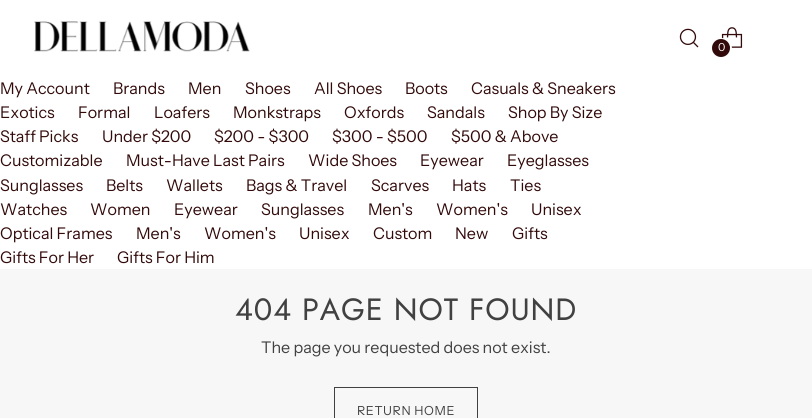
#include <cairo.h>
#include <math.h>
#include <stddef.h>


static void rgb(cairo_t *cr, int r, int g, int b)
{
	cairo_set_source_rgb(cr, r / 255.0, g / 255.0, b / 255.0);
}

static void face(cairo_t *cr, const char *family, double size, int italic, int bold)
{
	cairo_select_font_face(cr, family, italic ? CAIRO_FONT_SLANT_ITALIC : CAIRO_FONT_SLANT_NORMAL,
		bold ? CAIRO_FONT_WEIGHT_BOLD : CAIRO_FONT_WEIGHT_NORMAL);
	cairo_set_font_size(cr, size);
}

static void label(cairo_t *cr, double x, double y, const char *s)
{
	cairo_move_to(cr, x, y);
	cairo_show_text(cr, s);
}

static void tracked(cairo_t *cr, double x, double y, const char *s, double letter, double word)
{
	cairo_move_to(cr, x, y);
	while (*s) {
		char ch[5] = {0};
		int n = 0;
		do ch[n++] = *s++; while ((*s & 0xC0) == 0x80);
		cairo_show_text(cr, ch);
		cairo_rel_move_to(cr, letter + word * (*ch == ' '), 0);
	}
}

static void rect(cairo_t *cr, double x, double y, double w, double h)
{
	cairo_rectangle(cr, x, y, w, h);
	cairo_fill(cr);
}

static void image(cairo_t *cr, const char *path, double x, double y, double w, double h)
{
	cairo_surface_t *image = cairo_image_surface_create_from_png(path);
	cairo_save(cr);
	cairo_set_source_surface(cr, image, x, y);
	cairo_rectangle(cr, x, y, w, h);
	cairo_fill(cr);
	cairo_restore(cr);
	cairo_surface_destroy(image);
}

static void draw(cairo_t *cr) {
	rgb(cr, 247, 247, 247);
	cairo_paint(cr);
	rgb(cr, 255, 255, 255);
	rect(cr, 0, 0, 812, 269);
	image(cr, "image0.png", 34, 21, 216, 31);
	image(cr, "image1.png", 679, 28, 20, 20);
	image(cr, "image2.png", 721, 27, 22, 21);
	cairo_arc(cr, 721.5, 48.5, 9.5, 0, 2 * M_PI);
	cairo_stroke(cr);
	rgb(cr, 50, 10, 10);
	cairo_arc(cr, 721, 48, 9, 0, 2 * M_PI);
	cairo_fill(cr);
	face(cr, "Instrument Sans", 11, 0, 0);
	rgb(cr, 255, 255, 255);
	label(cr, 718, 51, "0");
	face(cr, "Instrument Sans", 16.1, 0, 0);
	rgb(cr, 50, 10, 10);
	label(cr, 0, 94, "My Account");
	label(cr, 113, 94, "Brands");
	label(cr, 188, 94, "Men");
	label(cr, 245, 94, "Shoes");
	label(cr, 314, 94, "All Shoes");
	label(cr, 405, 94, "Boots");
	label(cr, 471, 94, "Casuals & Sneakers");
	label(cr, 0, 118, "Exotics");
	label(cr, 78, 118, "Formal");
	label(cr, 154, 118, "Loafers");
	label(cr, 233, 118, "Monkstraps");
	label(cr, 344, 118, "Oxfords");
	label(cr, 427, 118, "Sandals");
	label(cr, 508, 118, "Shop By Size");
	label(cr, 0, 142, "Staff Picks");
	label(cr, 102, 142, "Under $200");
	label(cr, 214, 142, "$200 - $300");
	label(cr, 332, 142, "$300 - $500");
	label(cr, 451, 142, "$500 & Above");
	label(cr, 0, 166, "Customizable");
	label(cr, 126, 166, "Must-Have Last Pairs");
	label(cr, 308, 166, "Wide Shoes");
	label(cr, 420, 166, "Eyewear");
	label(cr, 507, 166, "Eyeglasses");
	label(cr, 0, 191, "Sunglasses");
	label(cr, 106, 191, "Belts");
	label(cr, 166, 191, "Wallets");
	label(cr, 246, 191, "Bags & Travel");
	label(cr, 371, 191, "Scarves");
	label(cr, 452, 191, "Hats");
	label(cr, 510, 191, "Ties");
	label(cr, 0, 215, "Watches");
	label(cr, 90, 215, "Women");
	label(cr, 174, 215, "Eyewear");
	label(cr, 261, 215, "Sunglasses");
	label(cr, 368, 215, "Men's");
	label(cr, 436, 215, "Women's");
	label(cr, 531, 215, "Unisex");
	label(cr, 0, 239, "Optical Frames");
	label(cr, 136, 239, "Men's");
	label(cr, 204, 239, "Women's");
	label(cr, 299, 239, "Unisex");
	label(cr, 373, 239, "Custom");
	label(cr, 455, 239, "New");
	label(cr, 512, 239, "Gifts");
	label(cr, 0, 263, "Gifts For Her");
	label(cr, 117, 263, "Gifts For Him");
	face(cr, "Jost", 30.75, 0, 0);
	rgb(cr, 65, 65, 65);
	tracked(cr, 235, 320, "404 PAGE NOT FOUND", 0.9, 0);
	face(cr, "Instrument Sans", 16.1, 0, 0);
	label(cr, 261, 353, "The page you requested does not exist.");
	cairo_rectangle(cr, 334.5, 387.5, 143, 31);
	cairo_set_line_width(cr, 1);
	cairo_stroke(cr);
	face(cr, "Instrument Sans", 12.5, 0, 0);
	tracked(cr, 357, 415, "RETURN HOME", 0.6, 0);
}

int main(void) {
	cairo_surface_t *surface = cairo_image_surface_create(CAIRO_FORMAT_RGB24, 812, 418);
	cairo_t *cr = cairo_create(surface);
	cairo_font_options_t *options = cairo_font_options_create();
	cairo_font_options_set_hint_metrics(options, CAIRO_HINT_METRICS_OFF);
	cairo_font_options_set_hint_style(options, CAIRO_HINT_STYLE_NONE);
	cairo_set_font_options(cr, options);
	cairo_set_miter_limit(cr, 4);
	draw(cr);
	cairo_surface_write_to_png(surface, "render.png");
	cairo_font_options_destroy(options);
	cairo_destroy(cr);
	cairo_surface_destroy(surface);
	return 0;
}
